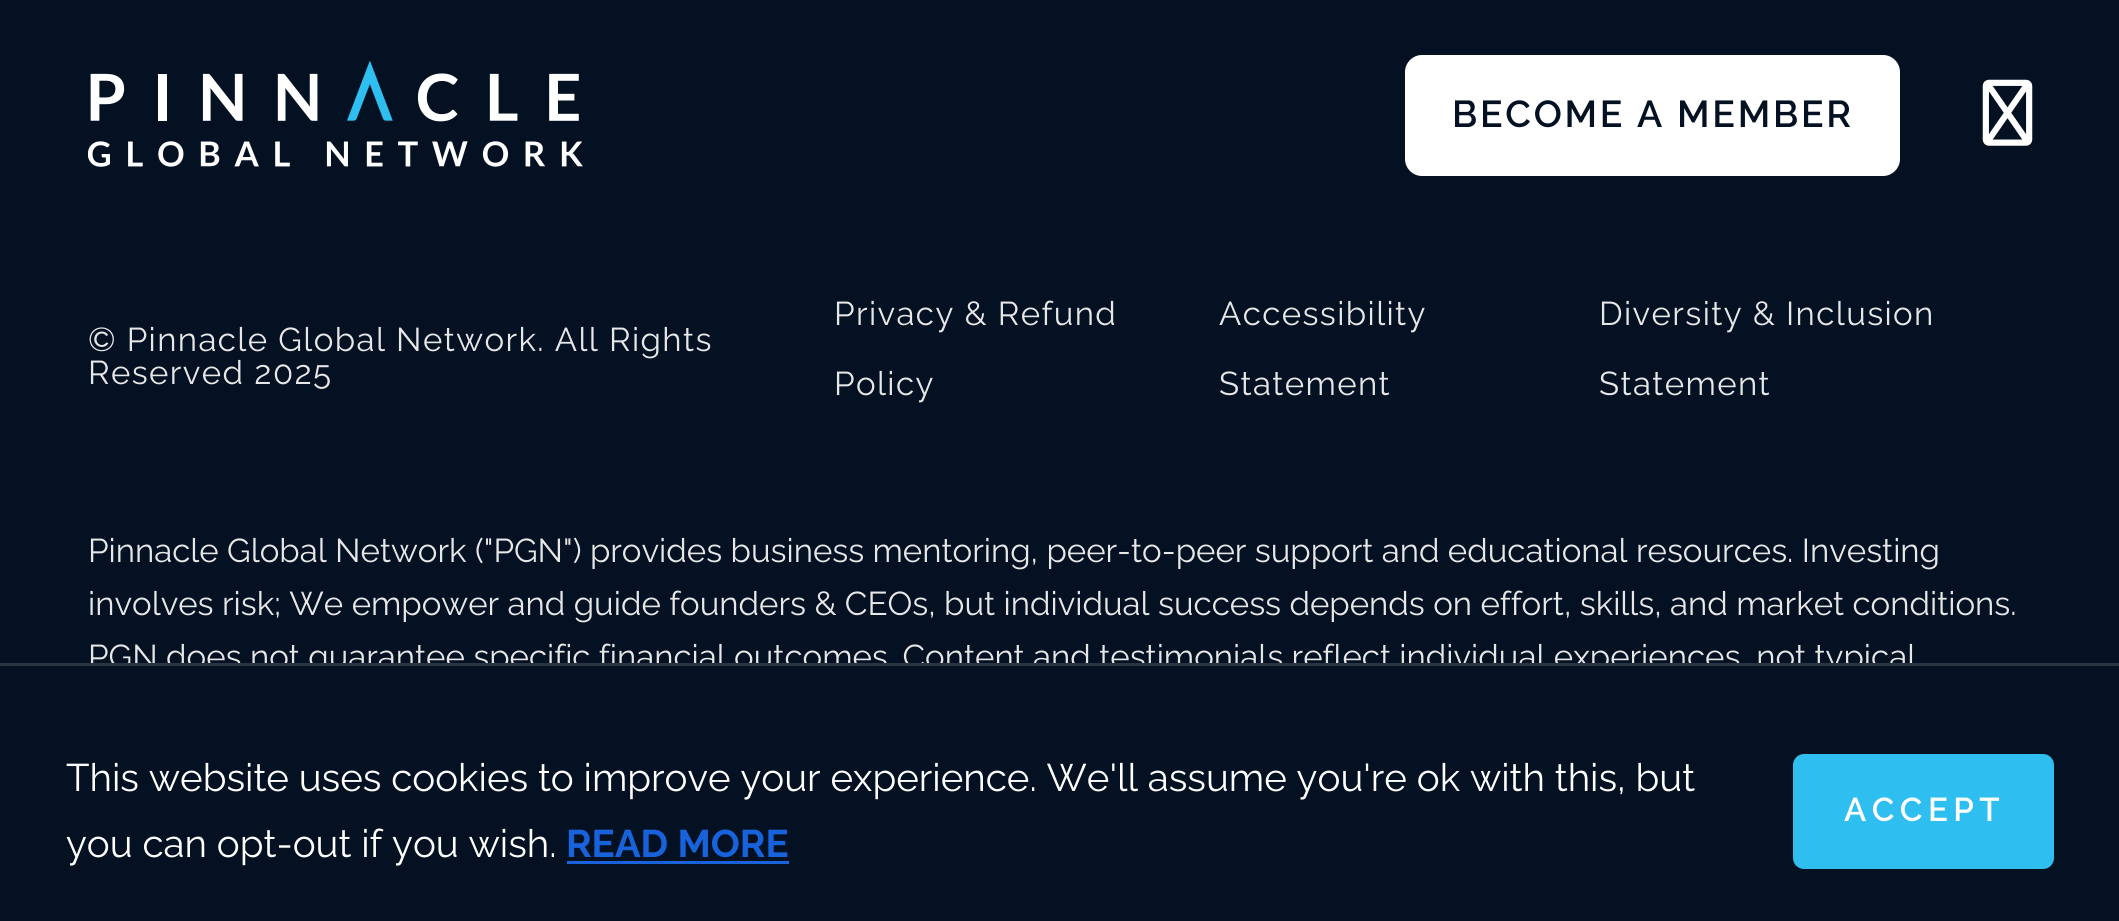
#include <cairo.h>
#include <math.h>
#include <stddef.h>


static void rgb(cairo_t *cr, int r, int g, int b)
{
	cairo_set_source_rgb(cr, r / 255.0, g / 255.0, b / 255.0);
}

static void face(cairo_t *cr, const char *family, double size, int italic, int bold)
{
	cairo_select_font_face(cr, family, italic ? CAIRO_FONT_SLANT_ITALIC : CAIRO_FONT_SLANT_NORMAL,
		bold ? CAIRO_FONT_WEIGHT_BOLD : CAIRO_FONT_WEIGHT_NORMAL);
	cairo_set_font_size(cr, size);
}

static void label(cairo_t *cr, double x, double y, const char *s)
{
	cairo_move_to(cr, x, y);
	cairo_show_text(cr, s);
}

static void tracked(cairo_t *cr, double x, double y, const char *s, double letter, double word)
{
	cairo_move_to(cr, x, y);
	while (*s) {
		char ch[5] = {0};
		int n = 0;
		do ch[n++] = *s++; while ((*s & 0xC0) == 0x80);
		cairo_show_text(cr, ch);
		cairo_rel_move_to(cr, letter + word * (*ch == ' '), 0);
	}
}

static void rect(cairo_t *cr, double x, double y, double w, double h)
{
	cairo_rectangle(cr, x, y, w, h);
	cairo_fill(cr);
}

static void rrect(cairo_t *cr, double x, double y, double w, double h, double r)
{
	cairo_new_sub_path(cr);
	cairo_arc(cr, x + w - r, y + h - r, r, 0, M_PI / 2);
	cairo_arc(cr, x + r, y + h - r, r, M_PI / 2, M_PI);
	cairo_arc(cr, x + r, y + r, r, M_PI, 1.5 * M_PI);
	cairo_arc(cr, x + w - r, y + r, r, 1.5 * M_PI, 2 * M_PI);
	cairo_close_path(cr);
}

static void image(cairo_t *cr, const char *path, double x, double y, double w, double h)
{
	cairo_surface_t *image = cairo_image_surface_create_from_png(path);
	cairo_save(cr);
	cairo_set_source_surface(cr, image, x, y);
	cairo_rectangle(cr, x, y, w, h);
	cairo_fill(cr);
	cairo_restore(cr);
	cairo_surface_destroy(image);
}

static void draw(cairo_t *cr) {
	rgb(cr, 3, 17, 34);
	cairo_paint(cr);
	image(cr, "image0.png", 88, 61, 495, 106);
	rgb(cr, 255, 255, 255);
	rrect(cr, 1406.5, 56.5, 492, 118, 15.5);
	cairo_fill_preserve(cr);
	cairo_set_line_width(cr, 3);
	cairo_stroke(cr);
	face(cr, "Raleway SemiBold", 37.4, 0, 0);
	rgb(cr, 3, 17, 34);
	tracked(cr, 1452, 127, "BECOME A MEMBER", 2.75, 0);
	image(cr, "image1.png", 1982, 79, 51, 67);
	face(cr, "Raleway", 33, 0, 0);
	rgb(cr, 231, 231, 231);
	tracked(cr, 88, 351, "© Pinnacle Global Network. All Rights", 1.4, 0);
	tracked(cr, 88, 384, "Reserved 2025", 1.4, 0);
	tracked(cr, 834, 325, "Privacy & Refund", 1.4, 0);
	tracked(cr, 834, 395, "Policy", 1.4, 0);
	tracked(cr, 1219, 325, "Accessibility", 1.4, 0);
	tracked(cr, 1219, 395, "Statement", 1.4, 0);
	tracked(cr, 1599, 325, "Diversity & Inclusion", 1.4, 0);
	tracked(cr, 1599, 395, "Statement", 1.4, 0);
	label(cr, 88, 562, "Pinnacle Global Network (\"PGN\") provides business mentoring, peer-to-peer support and educational resources. Investing");
	label(cr, 88, 615, "involves risk; We empower and guide founders & CEOs, but individual success depends on effort, skills, and market conditions.");
	label(cr, 88, 668, "PGN does not guarantee specific financial outcomes. Content and testimonials reflect individual experiences, not typical");
	rgb(cr, 3, 17, 34);
	rect(cr, 90, 666, 1827, 10);
	rgb(cr, 41, 53, 67);
	rect(cr, 0, 663, 2119, 3);
	face(cr, "Raleway", 38.5, 0, 0);
	rgb(cr, 255, 255, 255);
	label(cr, 66, 791, "This website uses cookies to improve your experience. We'll assume you're ok with this, but");
	label(cr, 66, 857, "you can opt-out if you wish.");
	face(cr, "Raleway", 38.5, 0, 1);
	rgb(cr, 24, 99, 220);
	label(cr, 566, 857, "READ MORE");
	rect(cr, 567, 861, 222, 3);
	rgb(cr, 46, 190, 239);
	rrect(cr, 1796, 757, 255, 109, 8);
	cairo_fill_preserve(cr);
	cairo_set_line_width(cr, 6);
	cairo_stroke(cr);
	face(cr, "Raleway SemiBold", 33, 0, 0);
	rgb(cr, 255, 255, 255);
	tracked(cr, 1844, 821, "ACCEPT", 5.5, 0);
}

int main(void) {
	cairo_surface_t *surface = cairo_image_surface_create(CAIRO_FORMAT_RGB24, 2119, 921);
	cairo_t *cr = cairo_create(surface);
	cairo_font_options_t *options = cairo_font_options_create();
	cairo_font_options_set_hint_metrics(options, CAIRO_HINT_METRICS_OFF);
	cairo_font_options_set_hint_style(options, CAIRO_HINT_STYLE_NONE);
	cairo_set_font_options(cr, options);
	cairo_set_miter_limit(cr, 4);
	draw(cr);
	cairo_surface_write_to_png(surface, "render.png");
	cairo_font_options_destroy(options);
	cairo_destroy(cr);
	cairo_surface_destroy(surface);
	return 0;
}
